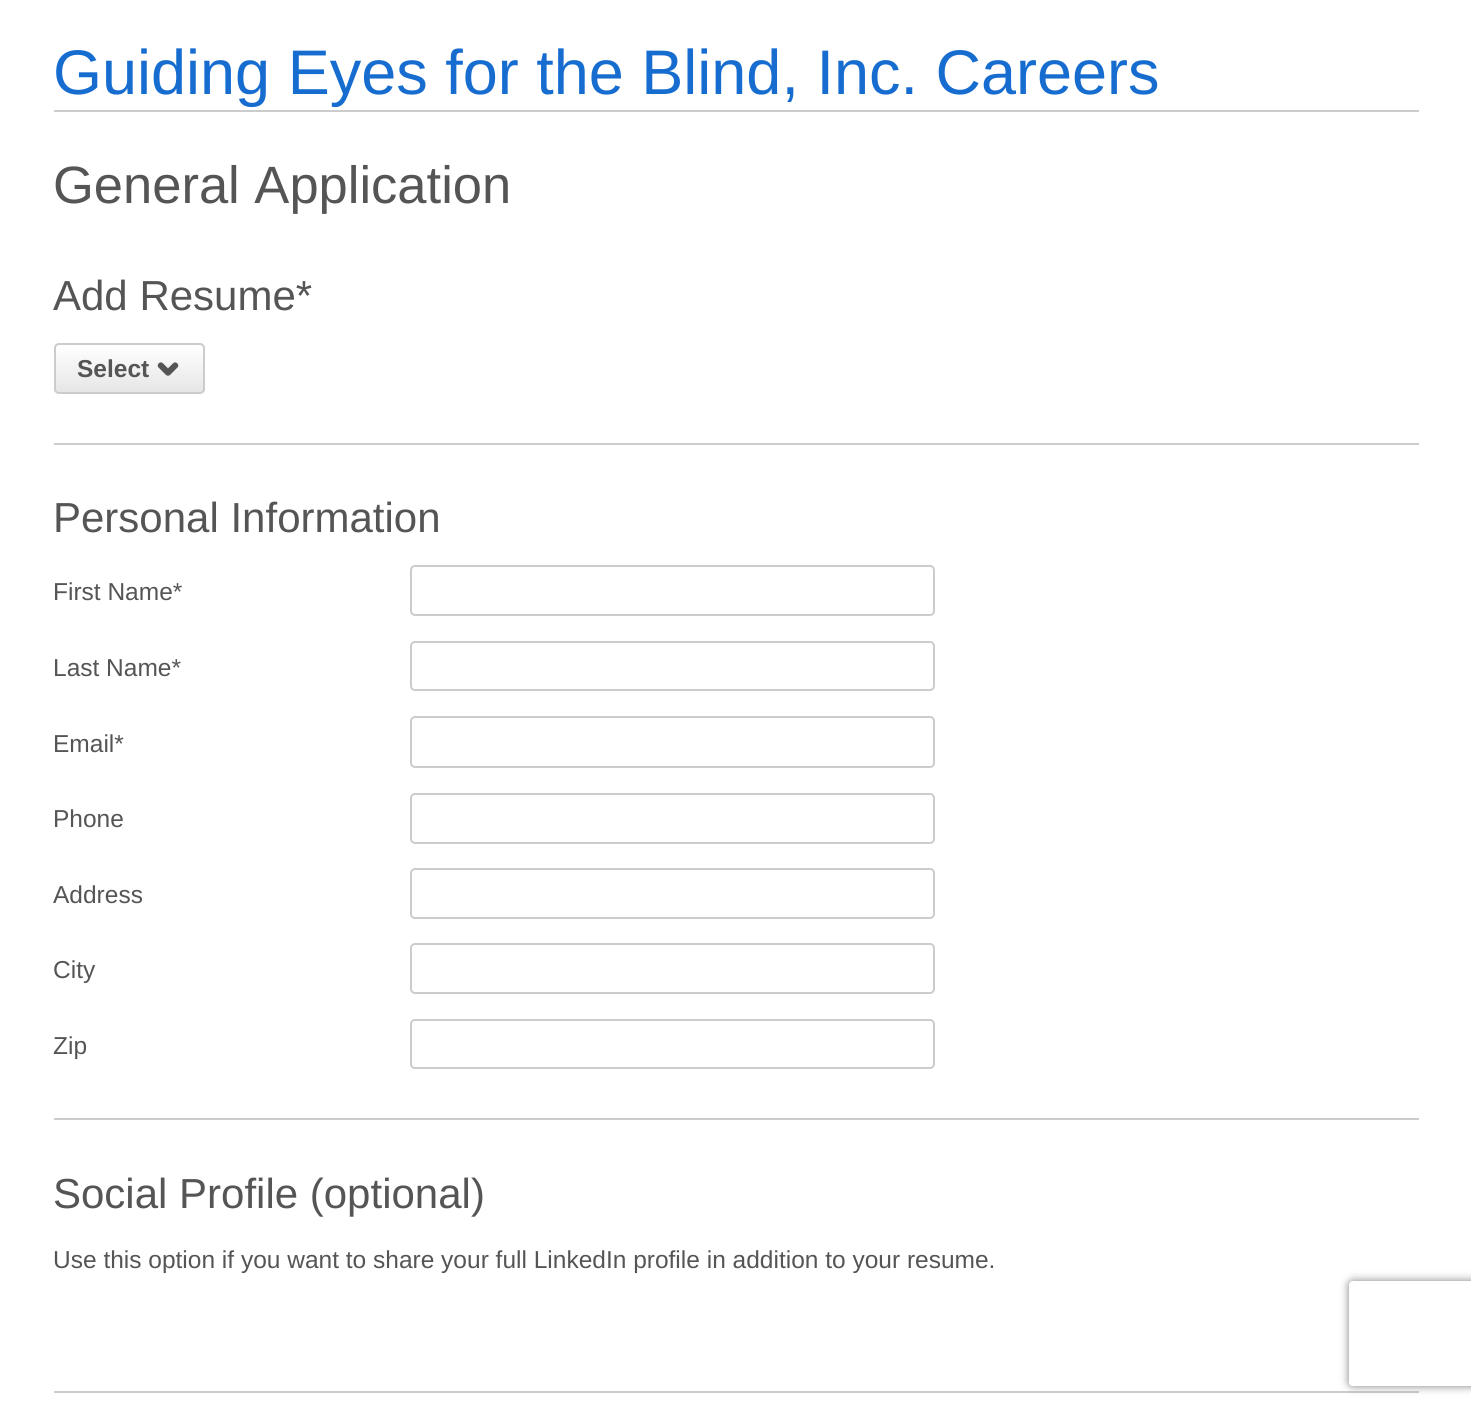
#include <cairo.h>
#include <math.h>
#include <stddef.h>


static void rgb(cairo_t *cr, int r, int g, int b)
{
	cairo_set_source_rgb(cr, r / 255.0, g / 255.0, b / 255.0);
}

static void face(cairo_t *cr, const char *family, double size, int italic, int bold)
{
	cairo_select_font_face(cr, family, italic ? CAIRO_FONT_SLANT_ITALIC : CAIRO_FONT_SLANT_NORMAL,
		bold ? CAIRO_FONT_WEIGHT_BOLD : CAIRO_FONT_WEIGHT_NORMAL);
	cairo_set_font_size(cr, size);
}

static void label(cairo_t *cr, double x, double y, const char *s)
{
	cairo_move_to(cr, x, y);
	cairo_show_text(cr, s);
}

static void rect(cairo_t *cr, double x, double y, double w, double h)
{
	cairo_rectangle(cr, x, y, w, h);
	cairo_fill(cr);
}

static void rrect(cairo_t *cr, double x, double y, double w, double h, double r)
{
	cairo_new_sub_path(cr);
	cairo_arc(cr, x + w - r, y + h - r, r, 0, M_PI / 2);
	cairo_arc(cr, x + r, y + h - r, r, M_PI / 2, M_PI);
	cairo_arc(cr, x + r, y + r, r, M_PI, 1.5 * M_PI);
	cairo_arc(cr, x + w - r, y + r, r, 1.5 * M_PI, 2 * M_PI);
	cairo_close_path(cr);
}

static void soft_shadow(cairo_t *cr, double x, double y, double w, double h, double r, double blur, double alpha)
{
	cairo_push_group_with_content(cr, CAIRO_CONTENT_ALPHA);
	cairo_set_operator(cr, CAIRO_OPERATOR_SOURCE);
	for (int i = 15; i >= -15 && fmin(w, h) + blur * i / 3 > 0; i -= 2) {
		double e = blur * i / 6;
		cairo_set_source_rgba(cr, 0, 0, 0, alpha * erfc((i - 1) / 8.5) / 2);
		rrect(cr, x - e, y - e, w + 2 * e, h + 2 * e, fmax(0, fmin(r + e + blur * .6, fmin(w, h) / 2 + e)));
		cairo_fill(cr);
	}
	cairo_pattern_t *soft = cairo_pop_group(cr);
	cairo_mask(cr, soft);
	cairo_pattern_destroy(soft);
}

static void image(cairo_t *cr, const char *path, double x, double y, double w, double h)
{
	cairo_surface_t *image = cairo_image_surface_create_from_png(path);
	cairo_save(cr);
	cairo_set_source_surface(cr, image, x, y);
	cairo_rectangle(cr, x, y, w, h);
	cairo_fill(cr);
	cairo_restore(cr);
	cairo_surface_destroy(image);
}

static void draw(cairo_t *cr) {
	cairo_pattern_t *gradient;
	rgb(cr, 255, 255, 255);
	cairo_paint(cr);
	rgb(cr, 204, 204, 204);
	rect(cr, 54, 110, 1365, 2);
	face(cr, "Liberation Sans", 63, 0, 0);
	rgb(cr, 23, 109, 207);
	label(cr, 53, 94, "Guiding Eyes for the Blind, Inc. Careers");
	face(cr, "Liberation Sans", 52.5, 0, 0);
	rgb(cr, 85, 85, 85);
	label(cr, 53, 203, "General Application");
	face(cr, "Liberation Sans", 42, 0, 0);
	label(cr, 53, 310, "Add Resume*");
	rgb(cr, 204, 204, 204);
	rect(cr, 54, 443, 1365, 2);
	cairo_save(cr);
	rrect(cr, 54, 343, 151, 51, 5);
	cairo_clip(cr);
	gradient = cairo_pattern_create_linear(130, 345, 130, 392);
	cairo_pattern_add_color_stop_rgba(gradient, 0, 1, 1, 1, 1);
	cairo_pattern_add_color_stop_rgba(gradient, 1, 0.902, 0.902, 0.902, 1);
	cairo_set_source(cr, gradient);
	cairo_pattern_destroy(gradient);
	rect(cr, 54, 345, 151, 47);
	cairo_restore(cr);
	rrect(cr, 55, 344, 149, 49, 4);
	cairo_stroke(cr);
	face(cr, "Liberation Sans", 24.5, 0, 1);
	rgb(cr, 85, 85, 85);
	label(cr, 77, 377, "Select");
	image(cr, "image0.png", 157, 362, 22, 14);
	rgb(cr, 204, 204, 204);
	rect(cr, 54, 1118, 1365, 2);
	face(cr, "Liberation Sans", 42, 0, 0);
	rgb(cr, 85, 85, 85);
	label(cr, 53, 532, "Personal Information");
	face(cr, "Liberation Sans", 24.5, 0, 0);
	label(cr, 53, 600, "First Name*");
	rrect(cr, 411, 566, 523, 49, 4);
	rgb(cr, 204, 204, 204);
	cairo_stroke(cr);
	rgb(cr, 85, 85, 85);
	label(cr, 53, 676, "Last Name*");
	rrect(cr, 411, 642, 523, 48, 4);
	rgb(cr, 204, 204, 204);
	cairo_stroke(cr);
	rgb(cr, 85, 85, 85);
	label(cr, 53, 752, "Email*");
	rrect(cr, 411, 717, 523, 50, 4);
	rgb(cr, 204, 204, 204);
	cairo_stroke(cr);
	rgb(cr, 85, 85, 85);
	label(cr, 53, 827, "Phone");
	rrect(cr, 411, 794, 523, 49, 4);
	rgb(cr, 204, 204, 204);
	cairo_stroke(cr);
	rgb(cr, 85, 85, 85);
	label(cr, 53, 903, "Address");
	rrect(cr, 411, 869, 523, 49, 4);
	rgb(cr, 204, 204, 204);
	cairo_stroke(cr);
	rgb(cr, 85, 85, 85);
	label(cr, 53, 978, "City");
	rrect(cr, 411, 944, 523, 49, 4);
	rgb(cr, 204, 204, 204);
	cairo_stroke(cr);
	rgb(cr, 85, 85, 85);
	label(cr, 53, 1054, "Zip");
	rrect(cr, 411, 1020, 523, 48, 4);
	rgb(cr, 204, 204, 204);
	cairo_stroke(cr);
	rect(cr, 54, 1391, 1365, 2);
	face(cr, "Liberation Sans", 42, 0, 0);
	rgb(cr, 85, 85, 85);
	label(cr, 53, 1208, "Social Profile (optional)");
	face(cr, "Liberation Sans", 24.5, 0, 0);
	label(cr, 53, 1268, "Use this option if you want to share your full LinkedIn profile in addition to your resume.");
	cairo_save(cr);
	cairo_set_fill_rule(cr, CAIRO_FILL_RULE_EVEN_ODD);
	cairo_new_path(cr);
	cairo_move_to(cr, 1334, 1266);
	cairo_line_to(cr, 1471, 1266);
	cairo_line_to(cr, 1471, 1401);
	cairo_line_to(cr, 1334, 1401);
	cairo_close_path(cr);
	cairo_move_to(cr, 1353, 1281);
	cairo_line_to(cr, 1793, 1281);
	cairo_curve_to(cr, 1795, 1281, 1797, 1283, 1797, 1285);
	cairo_line_to(cr, 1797, 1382);
	cairo_curve_to(cr, 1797, 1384, 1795, 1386, 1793, 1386);
	cairo_line_to(cr, 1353, 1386);
	cairo_curve_to(cr, 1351, 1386, 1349, 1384, 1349, 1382);
	cairo_line_to(cr, 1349, 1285);
	cairo_curve_to(cr, 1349, 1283, 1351, 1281, 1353, 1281);
	cairo_close_path(cr);
	cairo_clip(cr);
	rgb(cr, 128, 128, 128);
	soft_shadow(cr, 1349, 1281, 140, 105, 4, 4.5, 1);
	cairo_restore(cr);
}

int main(void) {
	cairo_surface_t *surface = cairo_image_surface_create(CAIRO_FORMAT_RGB24, 1471, 1409);
	cairo_t *cr = cairo_create(surface);
	cairo_font_options_t *options = cairo_font_options_create();
	cairo_font_options_set_hint_metrics(options, CAIRO_HINT_METRICS_OFF);
	cairo_font_options_set_hint_style(options, CAIRO_HINT_STYLE_NONE);
	cairo_set_font_options(cr, options);
	cairo_set_miter_limit(cr, 4);
	draw(cr);
	cairo_surface_write_to_png(surface, "render.png");
	cairo_font_options_destroy(options);
	cairo_destroy(cr);
	cairo_surface_destroy(surface);
	return 0;
}
